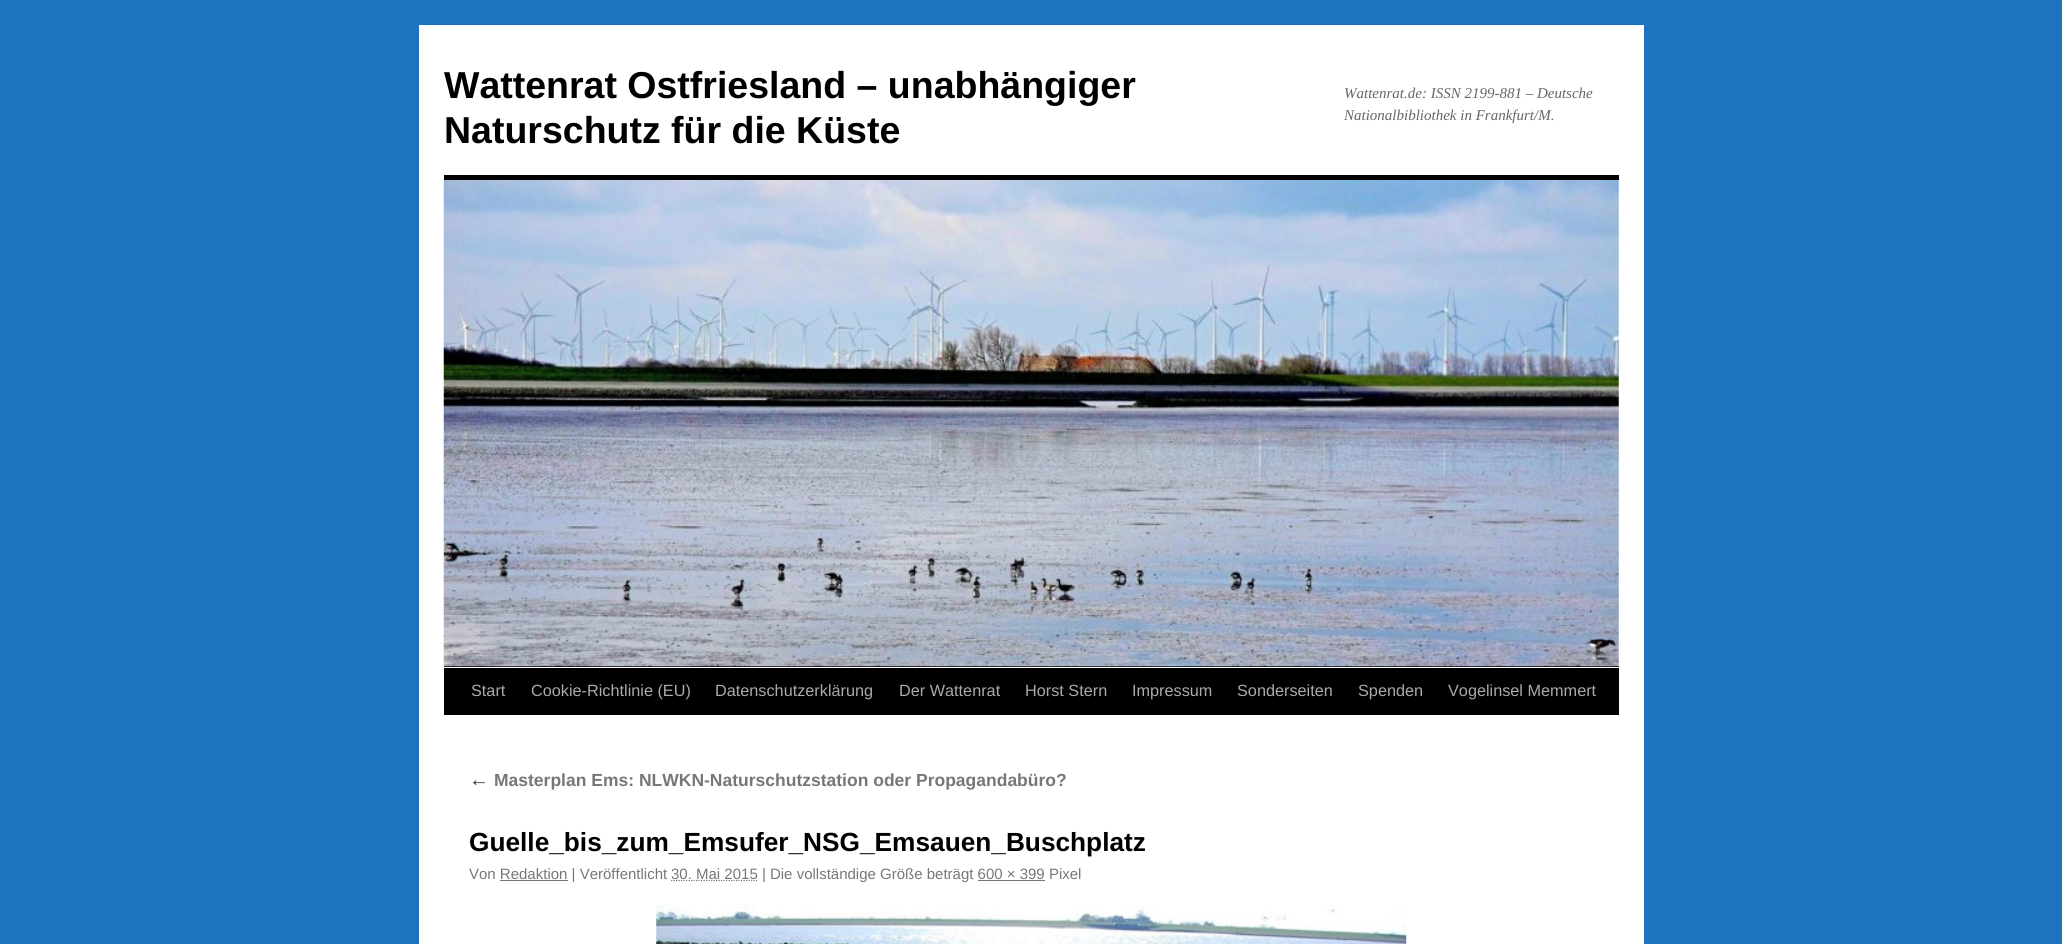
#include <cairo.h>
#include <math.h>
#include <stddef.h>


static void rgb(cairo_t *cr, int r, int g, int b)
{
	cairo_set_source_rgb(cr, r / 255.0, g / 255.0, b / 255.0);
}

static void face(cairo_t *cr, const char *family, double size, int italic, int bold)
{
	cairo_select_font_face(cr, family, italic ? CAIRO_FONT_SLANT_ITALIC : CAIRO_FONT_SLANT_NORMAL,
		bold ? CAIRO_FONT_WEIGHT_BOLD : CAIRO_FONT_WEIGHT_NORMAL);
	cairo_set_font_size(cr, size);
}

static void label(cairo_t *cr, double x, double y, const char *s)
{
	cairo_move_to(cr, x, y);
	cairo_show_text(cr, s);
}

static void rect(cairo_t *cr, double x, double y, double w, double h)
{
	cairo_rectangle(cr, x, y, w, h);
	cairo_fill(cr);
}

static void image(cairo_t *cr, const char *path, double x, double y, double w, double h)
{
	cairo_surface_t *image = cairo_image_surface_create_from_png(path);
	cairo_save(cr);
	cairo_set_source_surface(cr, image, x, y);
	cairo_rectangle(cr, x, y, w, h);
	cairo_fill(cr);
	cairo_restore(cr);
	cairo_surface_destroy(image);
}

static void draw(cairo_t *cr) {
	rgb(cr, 30, 115, 190);
	cairo_paint(cr);
	rgb(cr, 255, 255, 255);
	rect(cr, 419, 25, 1225, 919);
	face(cr, "Liberation Sans", 37.5, 0, 1);
	rgb(cr, 0, 0, 0);
	label(cr, 444, 98, "Wattenrat Ostfriesland – unabhängiger");
	label(cr, 444, 143, "Naturschutz für die Küste");
	face(cr, "Liberation Serif", 15, 1, 0);
	rgb(cr, 102, 102, 102);
	label(cr, 1344, 98, "Wattenrat.de: ISSN 2199-881 – Deutsche");
	label(cr, 1344, 120, "Nationalbibliothek in Frankfurt/M.");
	rgb(cr, 0, 0, 0);
	rect(cr, 444, 175, 1175, 5);
	rect(cr, 444, 666, 1175, 1);
	image(cr, "image0.png", 443, 180, 1176, 487);
	rect(cr, 444, 668, 1175, 47);
	face(cr, "Liberation Sans", 16.25, 0, 0);
	rgb(cr, 170, 170, 170);
	label(cr, 471, 696, "Start");
	label(cr, 531, 696, "Cookie-Richtlinie (EU)");
	label(cr, 715, 696, "Datenschutzerklärung");
	label(cr, 899, 696, "Der Wattenrat");
	label(cr, 1025, 696, "Horst Stern");
	label(cr, 1132, 696, "Impressum");
	label(cr, 1237, 696, "Sonderseiten");
	label(cr, 1358, 696, "Spenden");
	label(cr, 1448, 696, "Vogelinsel Memmert");
	face(cr, "Liberation Serif", 20, 1, 0);
	rgb(cr, 51, 51, 51);
	label(cr, 469, 786, "←");
	face(cr, "Liberation Sans", 17.5, 0, 1);
	rgb(cr, 119, 119, 119);
	label(cr, 494, 786, "Masterplan Ems: NLWKN-Naturschutzstation oder Propagandabüro?");
	face(cr, "Liberation Sans", 26.25, 0, 1);
	rgb(cr, 0, 0, 0);
	label(cr, 469, 851, "Guelle_bis_zum_Emsufer_NSG_Emsauen_Buschplatz");
	face(cr, "Liberation Sans", 15, 0, 0);
	rgb(cr, 119, 119, 119);
	label(cr, 469, 879, "Von Redaktion | Veröffentlicht");
	cairo_new_path(cr);
	cairo_move_to(cr, 671, 880.5);
	cairo_line_to(cr, 758, 880.5);
	cairo_set_line_width(cr, 1.2);
	cairo_set_dash(cr, (double[]){1.25, 1.25}, 2, 0);
	cairo_stroke(cr);
	label(cr, 671, 879, "30. Mai 2015 | Die vollständige Größe beträgt 600 × 399 Pixel");
	rect(cr, 500, 880, 68, 1);
	rect(cr, 978, 880, 67, 1);
	image(cr, "image1.png", 656, 904, 751, 40);
}

int main(void) {
	cairo_surface_t *surface = cairo_image_surface_create(CAIRO_FORMAT_RGB24, 2062, 944);
	cairo_t *cr = cairo_create(surface);
	cairo_font_options_t *options = cairo_font_options_create();
	cairo_font_options_set_hint_metrics(options, CAIRO_HINT_METRICS_OFF);
	cairo_font_options_set_hint_style(options, CAIRO_HINT_STYLE_NONE);
	cairo_set_font_options(cr, options);
	cairo_set_miter_limit(cr, 4);
	draw(cr);
	cairo_surface_write_to_png(surface, "render.png");
	cairo_font_options_destroy(options);
	cairo_destroy(cr);
	cairo_surface_destroy(surface);
	return 0;
}
